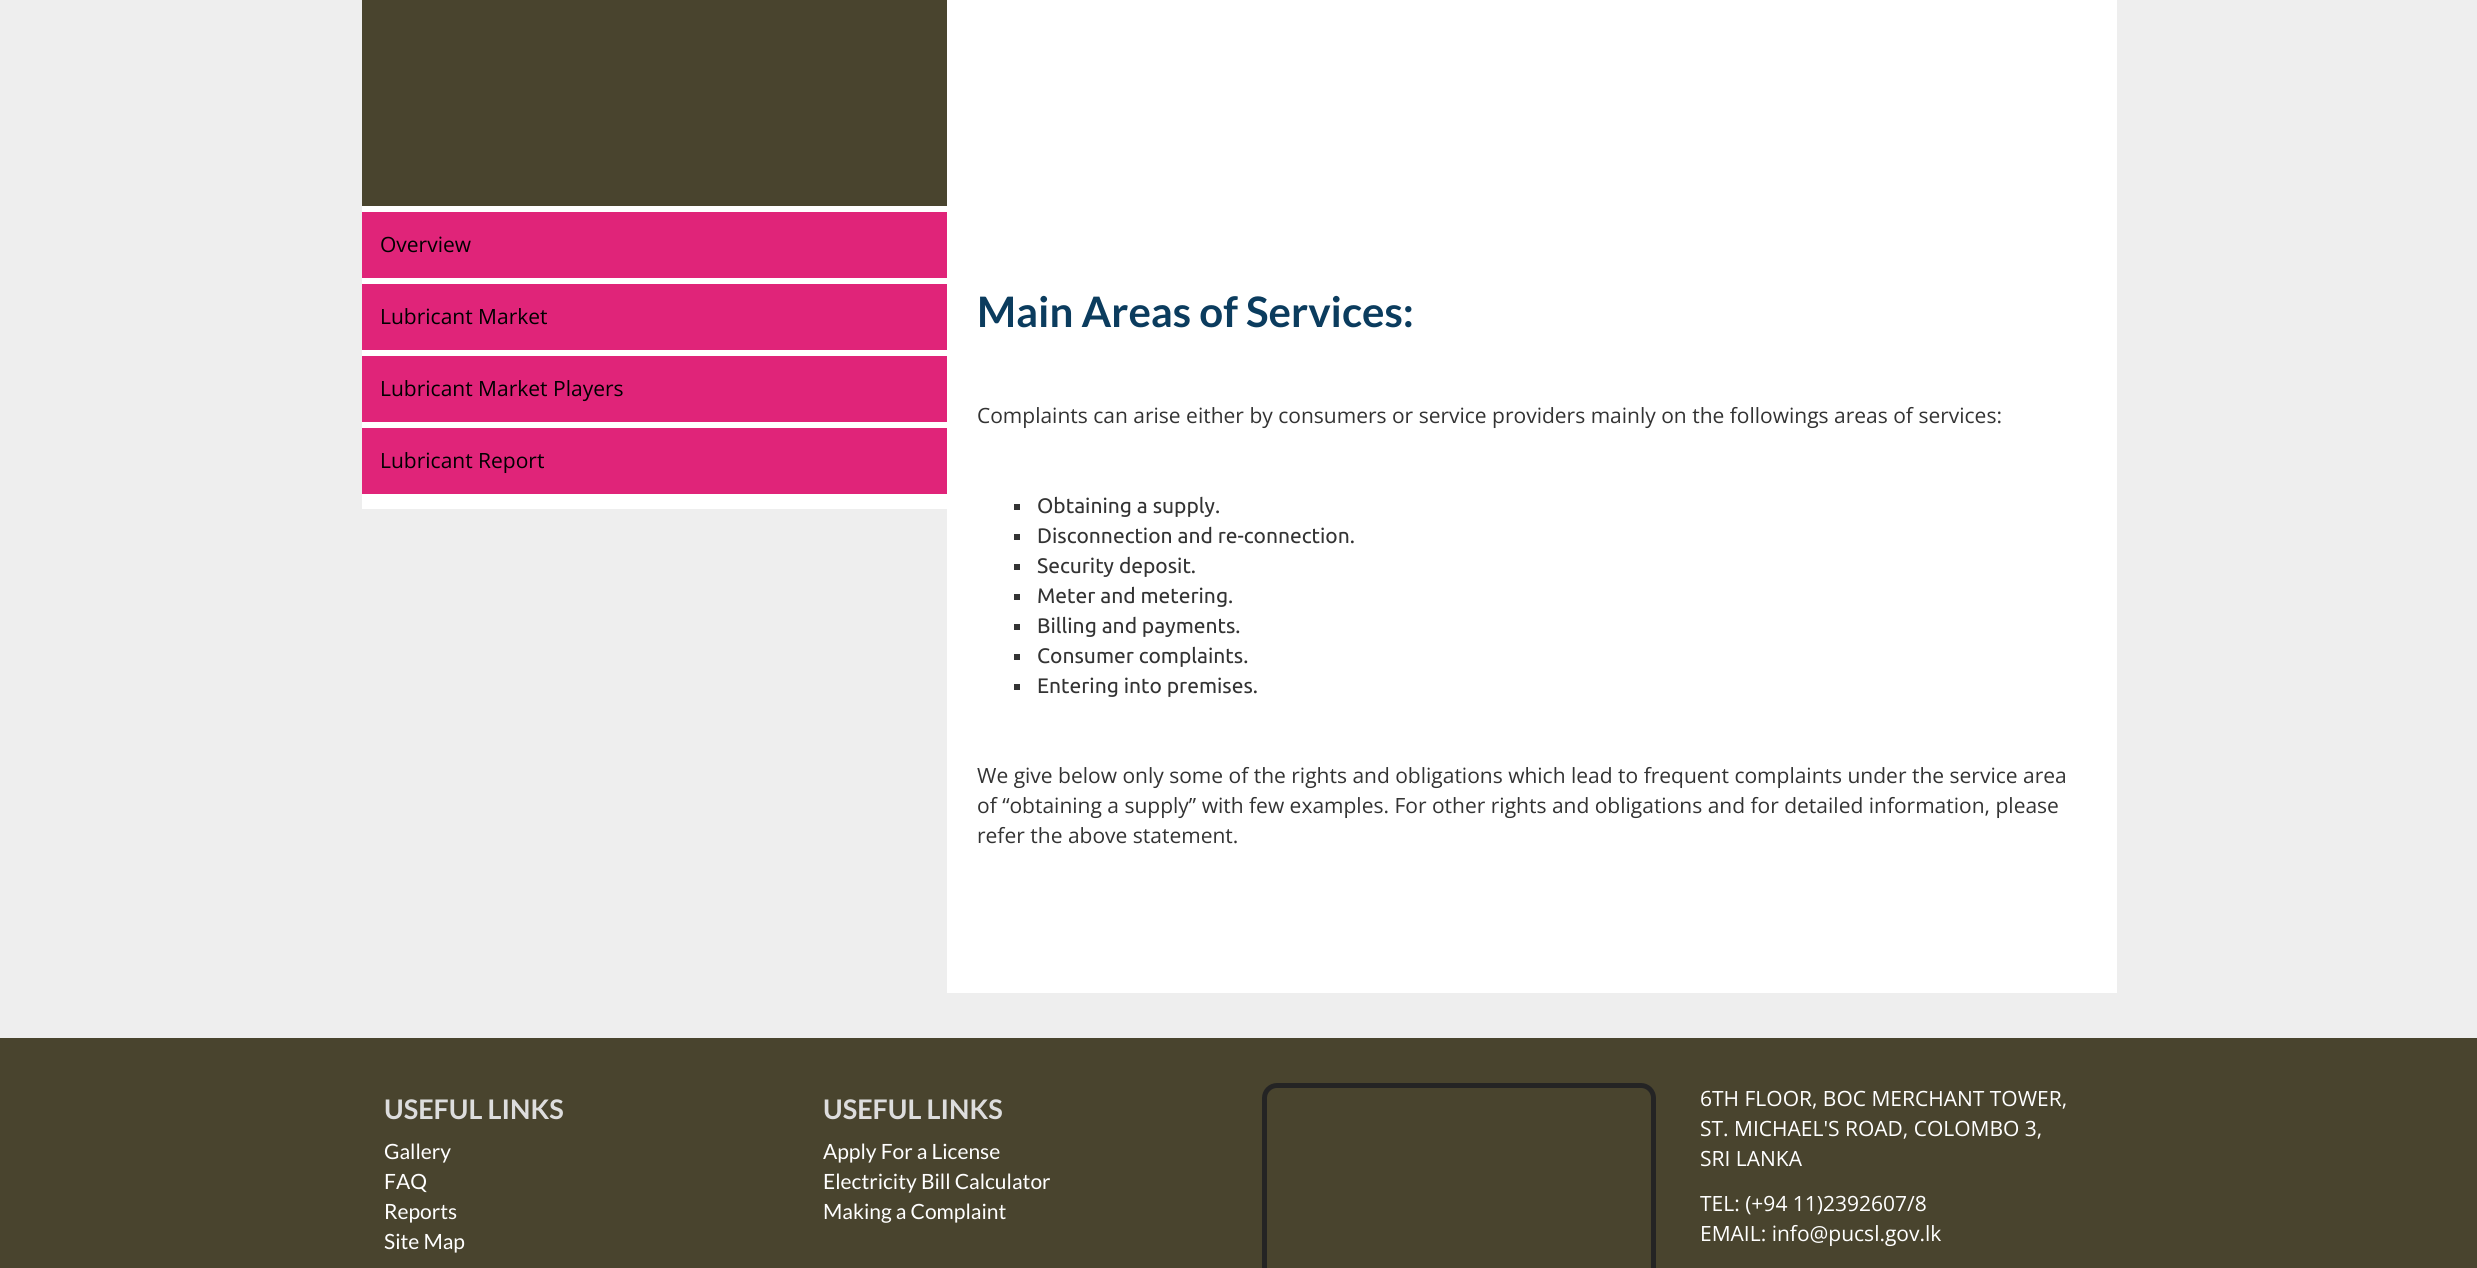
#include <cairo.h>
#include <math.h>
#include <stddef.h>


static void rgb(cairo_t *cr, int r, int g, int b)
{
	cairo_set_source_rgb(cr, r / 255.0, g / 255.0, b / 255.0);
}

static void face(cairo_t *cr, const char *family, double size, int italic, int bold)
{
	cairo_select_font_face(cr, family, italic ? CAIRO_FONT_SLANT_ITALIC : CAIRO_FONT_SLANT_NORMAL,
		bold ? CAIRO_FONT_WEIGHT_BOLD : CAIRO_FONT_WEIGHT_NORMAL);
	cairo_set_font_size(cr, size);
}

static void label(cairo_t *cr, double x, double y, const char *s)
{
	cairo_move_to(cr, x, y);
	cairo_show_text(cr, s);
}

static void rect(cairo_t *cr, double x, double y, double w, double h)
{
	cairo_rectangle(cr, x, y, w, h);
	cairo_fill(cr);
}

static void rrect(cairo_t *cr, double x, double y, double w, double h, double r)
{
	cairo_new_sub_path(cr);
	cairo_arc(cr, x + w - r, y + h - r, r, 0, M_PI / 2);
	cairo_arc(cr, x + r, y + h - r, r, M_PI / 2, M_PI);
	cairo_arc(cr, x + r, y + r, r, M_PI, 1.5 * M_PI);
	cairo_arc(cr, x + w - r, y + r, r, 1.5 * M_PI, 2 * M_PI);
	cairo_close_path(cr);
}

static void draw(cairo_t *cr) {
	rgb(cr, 238, 238, 238);
	cairo_paint(cr);
	rgb(cr, 255, 255, 255);
	rect(cr, 947, 0, 1170, 993);
	rgb(cr, 73, 68, 46);
	rect(cr, 362, 0, 585, 206);
	rgb(cr, 255, 255, 255);
	rect(cr, 362, 494, 585, 15);
	rgb(cr, 224, 36, 121);
	rect(cr, 362, 212, 585, 66);
	rgb(cr, 255, 255, 255);
	rect(cr, 362, 206, 585, 6);
	face(cr, "Open Sans", 21, 0, 0);
	rgb(cr, 0, 0, 0);
	label(cr, 380, 252, "Overview");
	rgb(cr, 224, 36, 121);
	rect(cr, 362, 284, 585, 66);
	rgb(cr, 255, 255, 255);
	rect(cr, 362, 278, 585, 6);
	rgb(cr, 0, 0, 0);
	label(cr, 380, 324, "Lubricant Market");
	rgb(cr, 224, 36, 121);
	rect(cr, 362, 356, 585, 66);
	rgb(cr, 255, 255, 255);
	rect(cr, 362, 350, 585, 6);
	rgb(cr, 0, 0, 0);
	label(cr, 380, 396, "Lubricant Market Players");
	rgb(cr, 224, 36, 121);
	rect(cr, 362, 428, 585, 66);
	rgb(cr, 255, 255, 255);
	rect(cr, 362, 422, 585, 6);
	rgb(cr, 0, 0, 0);
	label(cr, 380, 468, "Lubricant Report");
	face(cr, "Lato", 42, 0, 1);
	rgb(cr, 11, 60, 94);
	label(cr, 977, 327, "Main Areas of Services:");
	face(cr, "Open Sans", 21, 0, 0);
	rgb(cr, 51, 51, 51);
	label(cr, 977, 423, "Complaints can arise either by consumers or service providers mainly on the followings areas of services:");
	rect(cr, 1014, 504, 6, 6);
	face(cr, "Ubuntu", 21, 0, 0);
	label(cr, 1037, 513, "Obtaining a supply.");
	rect(cr, 1014, 534, 6, 6);
	label(cr, 1037, 543, "Disconnection and re-connection.");
	rect(cr, 1014, 564, 6, 6);
	label(cr, 1037, 573, "Security deposit.");
	rect(cr, 1014, 594, 6, 6);
	label(cr, 1037, 603, "Meter and metering.");
	rect(cr, 1014, 624, 6, 6);
	label(cr, 1037, 633, "Billing and payments.");
	rect(cr, 1014, 654, 6, 6);
	label(cr, 1037, 663, "Consumer complaints.");
	rect(cr, 1014, 684, 6, 6);
	label(cr, 1037, 693, "Entering into premises.");
	face(cr, "Open Sans", 21, 0, 0);
	label(cr, 977, 783, "We give below only some of the rights and obligations which lead to frequent complaints under the service area");
	label(cr, 977, 813, "of “obtaining a supply” with few examples. For other rights and obligations and for detailed information, please");
	label(cr, 977, 843, "refer the above statement.");
	rgb(cr, 73, 68, 46);
	rect(cr, 0, 1038, 2477, 230);
	face(cr, "Lato", 27, 0, 1);
	rgb(cr, 221, 221, 221);
	label(cr, 384, 1119, "USEFUL LINKS");
	face(cr, "Lato", 21, 0, 0);
	rgb(cr, 255, 255, 255);
	label(cr, 384, 1159, "Gallery");
	label(cr, 384, 1189, "FAQ");
	label(cr, 384, 1219, "Reports");
	label(cr, 384, 1249, "Site Map");
	face(cr, "Lato", 27, 0, 1);
	rgb(cr, 221, 221, 221);
	label(cr, 823, 1119, "USEFUL LINKS");
	face(cr, "Lato", 21, 0, 0);
	rgb(cr, 255, 255, 255);
	label(cr, 823, 1159, "Apply For a License");
	label(cr, 823, 1189, "Electricity Bill Calculator");
	label(cr, 823, 1219, "Making a Complaint");
	rrect(cr, 1264.5, 1085.5, 389, 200, 12.5);
	rgb(cr, 36, 36, 36);
	cairo_set_line_width(cr, 5);
	cairo_stroke(cr);
	face(cr, "Open Sans", 21, 0, 0);
	rgb(cr, 255, 255, 255);
	label(cr, 1700, 1106, "6TH FLOOR, BOC MERCHANT TOWER,");
	label(cr, 1700, 1136, "ST. MICHAEL'S ROAD, COLOMBO 3,");
	label(cr, 1700, 1166, "SRI LANKA");
	label(cr, 1700, 1211, "TEL: (+94 11)2392607/8");
	label(cr, 1700, 1241, "EMAIL: info@pucsl.gov.lk");
}

int main(void) {
	cairo_surface_t *surface = cairo_image_surface_create(CAIRO_FORMAT_RGB24, 2477, 1268);
	cairo_t *cr = cairo_create(surface);
	cairo_font_options_t *options = cairo_font_options_create();
	cairo_font_options_set_hint_metrics(options, CAIRO_HINT_METRICS_OFF);
	cairo_font_options_set_hint_style(options, CAIRO_HINT_STYLE_NONE);
	cairo_set_font_options(cr, options);
	cairo_set_miter_limit(cr, 4);
	draw(cr);
	cairo_surface_write_to_png(surface, "render.png");
	cairo_font_options_destroy(options);
	cairo_destroy(cr);
	cairo_surface_destroy(surface);
	return 0;
}
